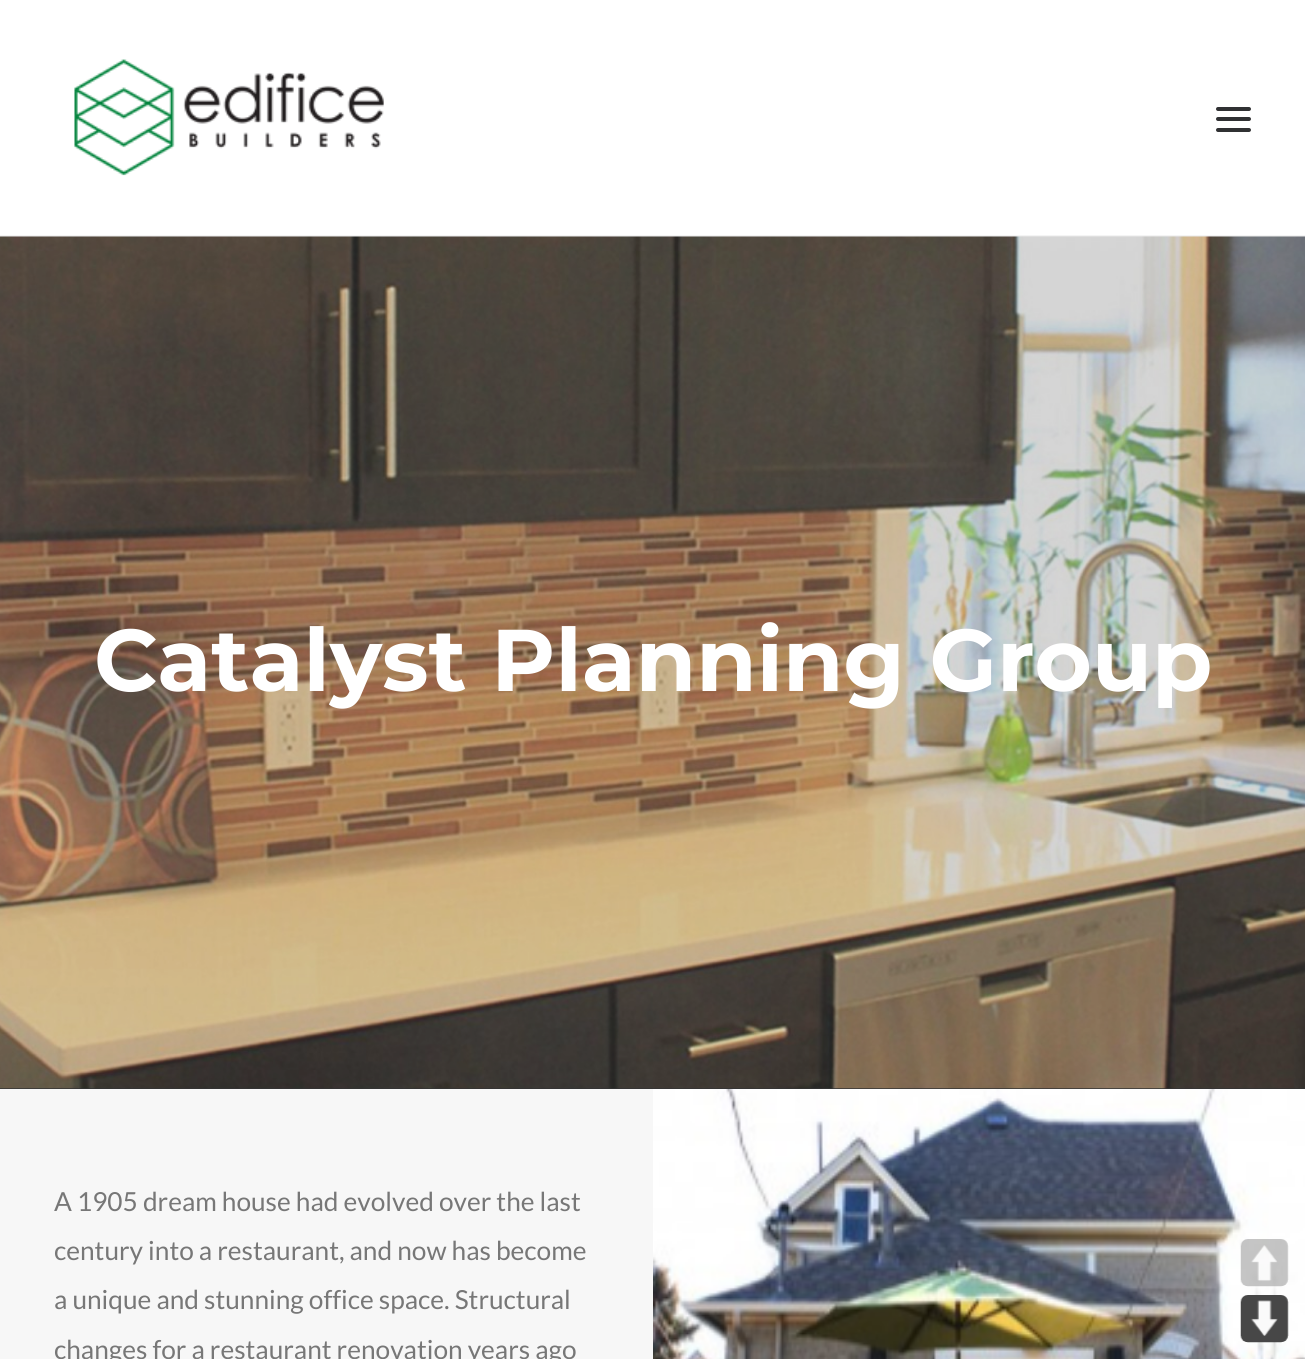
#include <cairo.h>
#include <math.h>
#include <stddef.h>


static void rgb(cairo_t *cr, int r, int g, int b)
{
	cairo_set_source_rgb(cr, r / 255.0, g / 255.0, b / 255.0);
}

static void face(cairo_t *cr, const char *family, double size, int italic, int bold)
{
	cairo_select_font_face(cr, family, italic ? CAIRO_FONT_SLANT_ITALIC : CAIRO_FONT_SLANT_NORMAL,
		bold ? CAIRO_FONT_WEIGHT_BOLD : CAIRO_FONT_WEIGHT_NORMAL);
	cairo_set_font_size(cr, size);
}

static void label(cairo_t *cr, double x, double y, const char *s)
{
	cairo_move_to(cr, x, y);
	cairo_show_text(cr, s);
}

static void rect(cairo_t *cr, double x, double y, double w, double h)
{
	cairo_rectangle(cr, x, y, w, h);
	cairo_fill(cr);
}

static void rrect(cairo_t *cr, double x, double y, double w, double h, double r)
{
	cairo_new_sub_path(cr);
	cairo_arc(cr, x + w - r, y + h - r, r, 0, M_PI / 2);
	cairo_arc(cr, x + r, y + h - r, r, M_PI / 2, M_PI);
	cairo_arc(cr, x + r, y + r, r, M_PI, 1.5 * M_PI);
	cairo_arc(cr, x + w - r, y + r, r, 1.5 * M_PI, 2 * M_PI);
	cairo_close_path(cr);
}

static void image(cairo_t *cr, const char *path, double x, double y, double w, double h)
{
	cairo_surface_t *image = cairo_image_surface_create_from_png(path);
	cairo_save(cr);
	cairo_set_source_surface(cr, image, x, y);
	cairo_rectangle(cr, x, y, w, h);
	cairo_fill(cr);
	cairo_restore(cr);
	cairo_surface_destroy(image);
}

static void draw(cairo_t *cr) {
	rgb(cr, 51, 52, 53);
	cairo_paint(cr);
	rgb(cr, 255, 255, 255);
	rect(cr, 0, 0, 1305, 236);
	image(cr, "image1.png", 0, 236, 1305, 853);
	cairo_set_source_rgba(cr, 0.918, 0.918, 0.918, 0.5);
	rect(cr, 0, 235, 1305, 2);
	image(cr, "image0.png", 74, 59, 310, 117);
	rgb(cr, 48, 49, 51);
	rrect(cr, 1216, 117, 35, 4, 2);
	cairo_fill(cr);
	rrect(cr, 1216, 107, 35, 4, 2);
	cairo_fill(cr);
	rrect(cr, 1216, 128, 35, 4, 2);
	cairo_fill(cr);
	face(cr, "Montserrat", 87.5, 0, 1);
	rgb(cr, 255, 255, 255);
	label(cr, 94, 691, "Catalyst Planning Group");
	rgb(cr, 247, 247, 247);
	rect(cr, 0, 1089, 653, 270);
	face(cr, "Lato", 26.25, 0, 0);
	rgb(cr, 119, 119, 119);
	label(cr, 54, 1211, "A 1905 dream house had evolved over the last");
	label(cr, 54, 1260, "century into a restaurant, and now has become");
	label(cr, 54, 1309, "a unique and stunning office space. Structural");
	label(cr, 54, 1359, "changes for a restaurant renovation years ago");
	image(cr, "image2.png", 653, 1089, 652, 270);
	cairo_set_source_rgba(cr, 0.937, 0.937, 0.937, 0.3);
	rrect(cr, 1241, 1239, 47, 47, 7);
	cairo_fill(cr);
	image(cr, "image3.png", 1240, 1239, 49, 48);
	rgb(cr, 239, 239, 239);
	rrect(cr, 1241, 1295, 47, 47, 7);
	cairo_fill(cr);
	image(cr, "image4.png", 1240, 1295, 49, 48);
}

int main(void) {
	cairo_surface_t *surface = cairo_image_surface_create(CAIRO_FORMAT_RGB24, 1305, 1359);
	cairo_t *cr = cairo_create(surface);
	cairo_font_options_t *options = cairo_font_options_create();
	cairo_font_options_set_hint_metrics(options, CAIRO_HINT_METRICS_OFF);
	cairo_font_options_set_hint_style(options, CAIRO_HINT_STYLE_NONE);
	cairo_set_font_options(cr, options);
	cairo_set_miter_limit(cr, 4);
	draw(cr);
	cairo_surface_write_to_png(surface, "render.png");
	cairo_font_options_destroy(options);
	cairo_destroy(cr);
	cairo_surface_destroy(surface);
	return 0;
}
